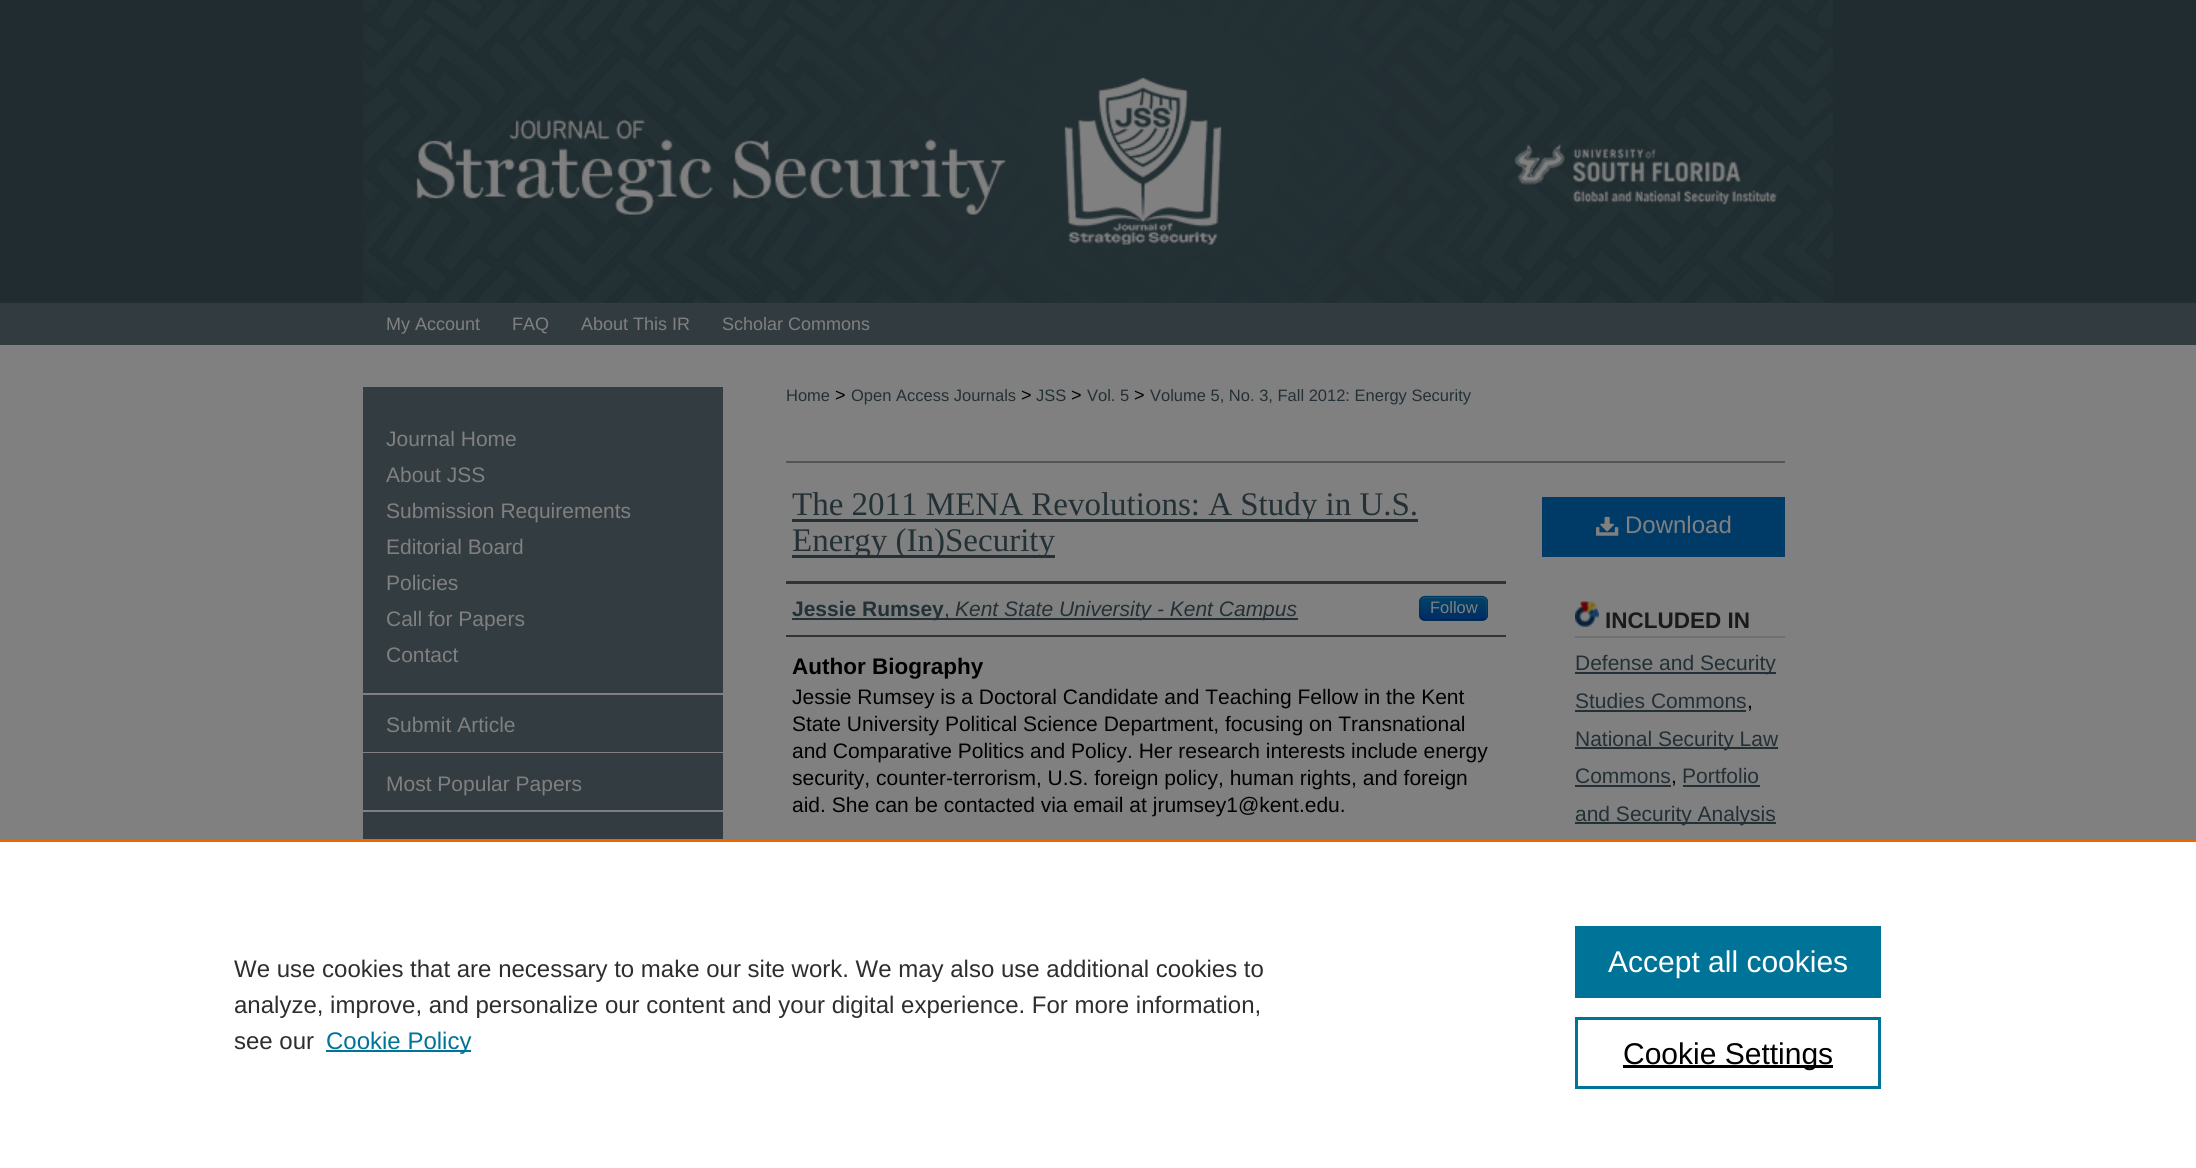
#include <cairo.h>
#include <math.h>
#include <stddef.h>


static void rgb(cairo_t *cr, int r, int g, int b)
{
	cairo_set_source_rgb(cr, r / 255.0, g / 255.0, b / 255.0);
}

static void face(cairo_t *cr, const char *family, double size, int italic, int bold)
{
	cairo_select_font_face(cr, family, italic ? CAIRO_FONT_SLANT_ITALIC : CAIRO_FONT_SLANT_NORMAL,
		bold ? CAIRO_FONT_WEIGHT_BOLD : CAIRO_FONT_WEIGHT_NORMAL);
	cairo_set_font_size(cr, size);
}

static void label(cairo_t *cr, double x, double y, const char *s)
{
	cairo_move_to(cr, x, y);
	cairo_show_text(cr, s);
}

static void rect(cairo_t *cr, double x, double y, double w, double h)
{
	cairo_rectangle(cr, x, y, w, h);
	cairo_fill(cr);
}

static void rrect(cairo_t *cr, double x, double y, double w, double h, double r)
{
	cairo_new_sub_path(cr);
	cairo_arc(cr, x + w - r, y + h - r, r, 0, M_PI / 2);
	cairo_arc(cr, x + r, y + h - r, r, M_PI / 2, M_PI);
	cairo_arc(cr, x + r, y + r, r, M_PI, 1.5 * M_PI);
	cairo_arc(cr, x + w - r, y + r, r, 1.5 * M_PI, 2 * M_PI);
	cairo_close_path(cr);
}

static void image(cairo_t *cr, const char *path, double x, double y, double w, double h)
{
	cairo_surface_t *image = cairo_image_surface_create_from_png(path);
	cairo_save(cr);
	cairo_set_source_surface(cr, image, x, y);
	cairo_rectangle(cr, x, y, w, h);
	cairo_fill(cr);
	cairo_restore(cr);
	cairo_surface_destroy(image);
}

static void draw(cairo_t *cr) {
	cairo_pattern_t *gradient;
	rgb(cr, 128, 128, 128);
	cairo_paint(cr);
	image(cr, "image0.png", 0, 0, 2196, 345);
	image(cr, "image1.png", 363, 0, 1470, 303);
	rgb(cr, 51, 60, 64);
	rect(cr, 363, 303, 1470, 1);
	face(cr, "Liberation Sans", 18, 0, 0);
	rgb(cr, 128, 128, 128);
	label(cr, 386, 330, "My Account");
	label(cr, 512, 330, "FAQ");
	label(cr, 581, 330, "About This IR");
	label(cr, 722, 330, "Scholar Commons");
	rgb(cr, 51, 60, 64);
	rect(cr, 363, 387, 360, 452);
	face(cr, "Liberation Sans", 21, 0, 0);
	rgb(cr, 128, 128, 128);
	label(cr, 386, 446, "Journal Home");
	label(cr, 386, 482, "About JSS");
	label(cr, 386, 518, "Submission Requirements");
	label(cr, 386, 554, "Editorial Board");
	label(cr, 386, 590, "Policies");
	label(cr, 386, 626, "Call for Papers");
	label(cr, 386, 662, "Contact");
	rect(cr, 363, 693, 360, 2);
	rect(cr, 363, 752, 360, 1);
	label(cr, 386, 732, "Submit Article");
	rect(cr, 363, 810, 360, 2);
	label(cr, 386, 791, "Most Popular Papers");
	face(cr, "Liberation Sans", 16.5, 0, 0);
	rgb(cr, 35, 48, 53);
	label(cr, 786, 401, "Home");
	face(cr, "Liberation Sans", 18, 0, 0);
	rgb(cr, 0, 0, 0);
	label(cr, 835, 401, ">");
	face(cr, "Liberation Sans", 16.5, 0, 0);
	rgb(cr, 35, 48, 53);
	label(cr, 851, 401, "Open Access Journals");
	face(cr, "Liberation Sans", 18, 0, 0);
	rgb(cr, 0, 0, 0);
	label(cr, 1021, 401, ">");
	face(cr, "Liberation Sans", 16.5, 0, 0);
	rgb(cr, 35, 48, 53);
	label(cr, 1036, 401, "JSS");
	face(cr, "Liberation Sans", 18, 0, 0);
	rgb(cr, 0, 0, 0);
	label(cr, 1071, 401, ">");
	face(cr, "Liberation Sans", 16.5, 0, 0);
	rgb(cr, 35, 48, 53);
	label(cr, 1087, 401, "Vol. 5");
	face(cr, "Liberation Sans", 18, 0, 0);
	rgb(cr, 0, 0, 0);
	label(cr, 1134, 401, ">");
	face(cr, "Liberation Sans", 16.5, 0, 0);
	rgb(cr, 35, 48, 53);
	label(cr, 1150, 401, "Volume 5, No. 3, Fall 2012: Energy Security");
	rgb(cr, 85, 85, 85);
	rect(cr, 786, 461, 999, 2);
	rgb(cr, 35, 48, 53);
	rect(cr, 792, 519, 626, 3);
	face(cr, "Liberation Serif", 33, 0, 0);
	label(cr, 792, 515, "The 2011 MENA Revolutions: A Study in U.S.");
	rect(cr, 792, 555, 263, 3);
	label(cr, 792, 551, "Energy (In)Security");
	rgb(cr, 51, 51, 51);
	rect(cr, 786, 581, 720, 3);
	rect(cr, 786, 635, 720, 2);
	rgb(cr, 35, 48, 53);
	rect(cr, 792, 618, 506, 2);
	face(cr, "Liberation Sans", 21, 0, 1);
	label(cr, 792, 616, "Jessie Rumsey");
	face(cr, "Liberation Sans", 21, 0, 0);
	label(cr, 944, 616, ",");
	face(cr, "Liberation Sans", 21, 1, 0);
	label(cr, 955, 616, "Kent State University - Kent Campus");
	rgb(cr, 0, 58, 102);
	rrect(cr, 1419, 596, 69, 25, 6);
	cairo_fill(cr);
	cairo_save(cr);
	rrect(cr, 1419, 596, 69, 25, 6);
	cairo_clip(cr);
	gradient = cairo_pattern_create_linear(1454, 597, 1454, 620);
	cairo_pattern_add_color_stop_rgba(gradient, 0, 0, 0.267, 0.4, 1);
	cairo_pattern_add_color_stop_rgba(gradient, 1, 0, 0.169, 0.4, 1);
	cairo_set_source(cr, gradient);
	cairo_pattern_destroy(gradient);
	rect(cr, 1419, 597, 69, 23);
	cairo_restore(cr);
	cairo_set_source_rgba(cr, 0.502, 0.502, 0.502, 0.2);
	cairo_new_path(cr);
	cairo_move_to(cr, 1425, 598);
	cairo_line_to(cr, 1482, 598);
	cairo_curve_to(cr, 1484, 598, 1486, 601, 1486, 603);
	cairo_line_to(cr, 1486, 616);
	cairo_line_to(cr, 1485, 619);
	cairo_curve_to(cr, 1486, 618, 1487, 616, 1487, 615);
	cairo_line_to(cr, 1487, 602);
	cairo_curve_to(cr, 1487, 599, 1485, 597, 1482, 597);
	cairo_line_to(cr, 1426, 597);
	cairo_curve_to(cr, 1424, 597, 1422, 598, 1421, 600);
	cairo_curve_to(cr, 1422, 599, 1424, 598, 1425, 598);
	cairo_close_path(cr);
	cairo_fill(cr);
	cairo_new_path(cr);
	cairo_move_to(cr, 1485.5, 618.5);
	cairo_curve_to(cr, 1484.5, 619.5, 1483.5, 620, 1482, 620);
	cairo_line_to(cr, 1425, 620);
	cairo_curve_to(cr, 1423.5, 620, 1422.5, 619.5, 1421.5, 618.5);
	cairo_set_source_rgba(cr, 0, 0, 0, 0.25);
	cairo_set_line_width(cr, 1.5);
	cairo_stroke(cr);
	cairo_new_path(cr);
	cairo_move_to(cr, 1421.5, 618.5);
	cairo_curve_to(cr, 1418.5, 616, 1420, 611.5, 1420, 608);
	cairo_curve_to(cr, 1420, 595, 1420.5, 596, 1434.5, 596);
	cairo_line_to(cr, 1472.5, 596);
	cairo_curve_to(cr, 1486.5, 596, 1487, 595, 1487, 608);
	cairo_curve_to(cr, 1487, 611.5, 1488.5, 616, 1485.5, 618.5);
	cairo_set_source_rgba(cr, 0, 0, 0, 0.1);
	cairo_stroke(cr);
	face(cr, "Liberation Sans", 16.5, 0, 0);
	rgb(cr, 128, 128, 128);
	label(cr, 1430, 613, "Follow");
	face(cr, "Liberation Sans", 22.5, 0, 1);
	rgb(cr, 0, 0, 0);
	label(cr, 792, 674, "Author Biography");
	face(cr, "Liberation Sans", 21, 0, 0);
	label(cr, 792, 704, "Jessie Rumsey is a Doctoral Candidate and Teaching Fellow in the Kent");
	label(cr, 792, 731, "State University Political Science Department, focusing on Transnational");
	label(cr, 792, 758, "and Comparative Politics and Policy. Her research interests include energy");
	label(cr, 792, 785, "security, counter-terrorism, U.S. foreign policy, human rights, and foreign");
	label(cr, 792, 812, "aid. She can be contacted via email at jrumsey1@kent.edu.");
	rgb(cr, 0, 58, 102);
	rect(cr, 1542, 497, 243, 60);
	image(cr, "image2.png", 1596, 516, 23, 20);
	face(cr, "Liberation Sans", 24, 0, 0);
	rgb(cr, 128, 128, 128);
	label(cr, 1625, 533, "Download");
	image(cr, "image3.png", 1575, 601, 24, 26);
	rgb(cr, 111, 111, 111);
	rect(cr, 1575, 636, 210, 2);
	face(cr, "Liberation Sans", 22.5, 0, 1);
	rgb(cr, 26, 26, 26);
	label(cr, 1605, 628, "INCLUDED IN");
	rgb(cr, 35, 48, 53);
	rect(cr, 1575, 672, 201, 2);
	face(cr, "Liberation Sans", 21, 0, 0);
	label(cr, 1575, 670, "Defense and Security");
	label(cr, 1575, 708, "Studies Commons");
	rect(cr, 1575, 710, 171, 2);
	rgb(cr, 0, 0, 0);
	label(cr, 1747, 708, ",");
	rgb(cr, 35, 48, 53);
	rect(cr, 1575, 747, 203, 2);
	label(cr, 1575, 746, "National Security Law");
	label(cr, 1575, 783, "Commons");
	rect(cr, 1575, 785, 96, 2);
	rgb(cr, 0, 0, 0);
	label(cr, 1671, 783, ",");
	rgb(cr, 35, 48, 53);
	label(cr, 1682, 783, "Portfolio");
	rect(cr, 1683, 785, 77, 2);
	rect(cr, 1575, 822, 201, 2);
	label(cr, 1575, 821, "and Security Analysis");
	rgb(cr, 255, 255, 255);
	rect(cr, 0, 842, 2196, 326);
	rgb(cr, 235, 101, 0);
	rect(cr, 0, 839, 2196, 3);
	face(cr, "Liberation Sans", 24, 0, 0);
	rgb(cr, 46, 46, 46);
	label(cr, 234, 977, "We use cookies that are necessary to make our site work. We may also use additional cookies to");
	label(cr, 234, 1013, "analyze, improve, and personalize our content and your digital experience. For more information,");
	label(cr, 234, 1049, "see our");
	rgb(cr, 0, 115, 152);
	rect(cr, 326, 1050, 145, 2);
	label(cr, 326, 1049, "Cookie Policy");
	rect(cr, 1575, 926, 306, 72);
	face(cr, "Liberation Sans", 30, 0, 0);
	rgb(cr, 255, 255, 255);
	label(cr, 1608, 972, "Accept all cookies");
	cairo_rectangle(cr, 1576.5, 1018.5, 303, 69);
	rgb(cr, 0, 115, 152);
	cairo_set_line_width(cr, 3);
	cairo_stroke(cr);
	rgb(cr, 0, 0, 0);
	rect(cr, 1623, 1065, 210, 3);
	label(cr, 1623, 1064, "Cookie Settings");
}

int main(void) {
	cairo_surface_t *surface = cairo_image_surface_create(CAIRO_FORMAT_RGB24, 2196, 1168);
	cairo_t *cr = cairo_create(surface);
	cairo_font_options_t *options = cairo_font_options_create();
	cairo_font_options_set_hint_metrics(options, CAIRO_HINT_METRICS_OFF);
	cairo_font_options_set_hint_style(options, CAIRO_HINT_STYLE_NONE);
	cairo_set_font_options(cr, options);
	cairo_set_miter_limit(cr, 4);
	draw(cr);
	cairo_surface_write_to_png(surface, "render.png");
	cairo_font_options_destroy(options);
	cairo_destroy(cr);
	cairo_surface_destroy(surface);
	return 0;
}
